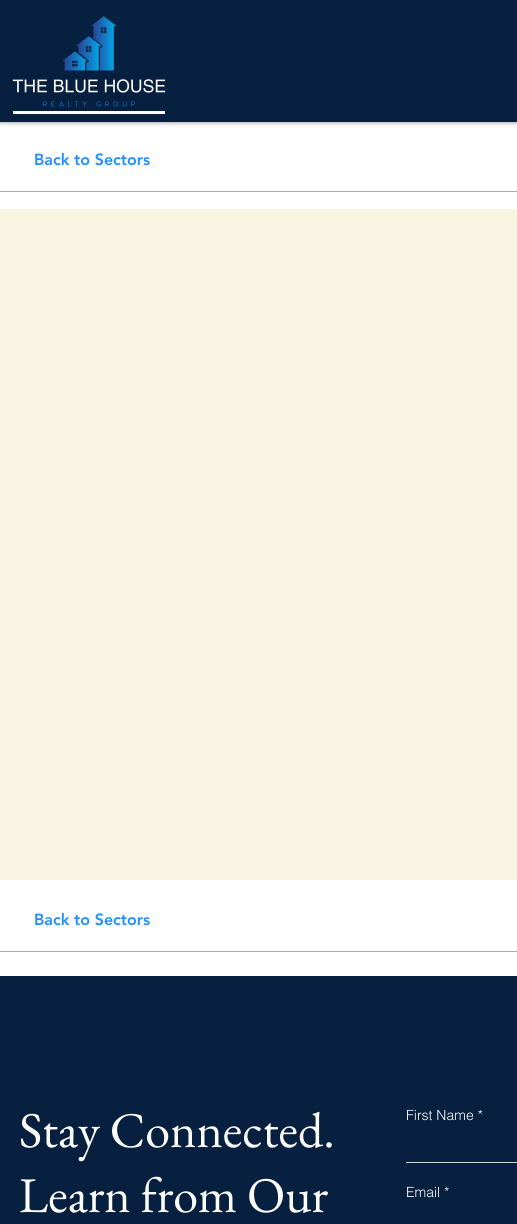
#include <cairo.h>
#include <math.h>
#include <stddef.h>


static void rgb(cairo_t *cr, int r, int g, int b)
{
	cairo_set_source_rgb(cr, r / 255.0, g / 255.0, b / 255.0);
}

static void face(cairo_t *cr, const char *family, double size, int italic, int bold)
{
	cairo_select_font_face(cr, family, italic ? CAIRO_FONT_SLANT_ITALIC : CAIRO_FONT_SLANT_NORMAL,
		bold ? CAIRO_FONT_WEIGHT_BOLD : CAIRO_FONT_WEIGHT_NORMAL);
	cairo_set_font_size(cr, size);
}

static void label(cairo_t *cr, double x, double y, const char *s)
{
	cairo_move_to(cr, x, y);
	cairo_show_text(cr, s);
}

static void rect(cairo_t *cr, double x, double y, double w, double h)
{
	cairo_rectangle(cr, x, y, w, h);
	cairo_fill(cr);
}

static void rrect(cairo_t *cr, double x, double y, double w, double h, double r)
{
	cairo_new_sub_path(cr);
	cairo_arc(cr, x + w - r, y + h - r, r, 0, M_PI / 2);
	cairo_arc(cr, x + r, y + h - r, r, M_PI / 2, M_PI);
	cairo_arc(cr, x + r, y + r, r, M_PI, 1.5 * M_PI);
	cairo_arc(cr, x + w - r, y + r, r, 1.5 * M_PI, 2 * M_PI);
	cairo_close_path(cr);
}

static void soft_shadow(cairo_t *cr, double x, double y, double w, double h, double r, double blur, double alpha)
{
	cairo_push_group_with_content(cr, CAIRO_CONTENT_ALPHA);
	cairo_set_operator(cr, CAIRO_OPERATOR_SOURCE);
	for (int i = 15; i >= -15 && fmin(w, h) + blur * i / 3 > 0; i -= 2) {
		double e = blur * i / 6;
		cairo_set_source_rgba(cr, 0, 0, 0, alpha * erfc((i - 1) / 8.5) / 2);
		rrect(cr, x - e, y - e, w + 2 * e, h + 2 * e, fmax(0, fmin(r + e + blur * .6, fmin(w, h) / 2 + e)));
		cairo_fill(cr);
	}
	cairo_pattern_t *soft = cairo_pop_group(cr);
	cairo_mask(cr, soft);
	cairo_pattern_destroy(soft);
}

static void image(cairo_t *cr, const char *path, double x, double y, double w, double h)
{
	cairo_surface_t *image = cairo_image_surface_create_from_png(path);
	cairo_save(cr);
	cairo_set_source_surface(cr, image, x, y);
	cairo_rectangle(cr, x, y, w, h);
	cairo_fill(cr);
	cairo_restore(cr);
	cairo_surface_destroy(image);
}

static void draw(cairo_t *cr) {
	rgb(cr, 255, 255, 255);
	cairo_paint(cr);
	rgb(cr, 0, 0, 0);
	soft_shadow(cr, 0, 0, 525, 122, 0, 2.5, 0.5);
	rgb(cr, 7, 32, 63);
	rect(cr, 0, 0, 517, 122);
	image(cr, "image0.png", 12, 16, 154, 98);
	face(cr, "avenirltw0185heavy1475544 Black", 16, 0, 0);
	rgb(cr, 30, 144, 255);
	label(cr, 34, 165, "Back to Sectors");
	rgb(cr, 170, 170, 170);
	rect(cr, 0, 191, 517, 1);
	rgb(cr, 247, 245, 225);
	rect(cr, 0, 209, 517, 671);
	rgb(cr, 30, 144, 255);
	label(cr, 34, 925, "Back to Sectors");
	rgb(cr, 170, 170, 170);
	rect(cr, 0, 951, 517, 1);
	rgb(cr, 7, 32, 63);
	rect(cr, 0, 976, 517, 248);
	face(cr, "EB Garamond", 50, 0, 0);
	rgb(cr, 255, 255, 255);
	label(cr, 19, 1147, "Stay Connected.");
	label(cr, 19, 1212, "Learn from Our");
	face(cr, "helvetica Light", 14, 0, 0);
	label(cr, 406, 1120, "First Name *");
	rgb(cr, 213, 213, 213);
	rect(cr, 406, 1162, 111, 1);
	rgb(cr, 255, 255, 255);
	label(cr, 406, 1197, "Email *");
}

int main(void) {
	cairo_surface_t *surface = cairo_image_surface_create(CAIRO_FORMAT_RGB24, 517, 1224);
	cairo_t *cr = cairo_create(surface);
	cairo_font_options_t *options = cairo_font_options_create();
	cairo_font_options_set_hint_metrics(options, CAIRO_HINT_METRICS_OFF);
	cairo_font_options_set_hint_style(options, CAIRO_HINT_STYLE_NONE);
	cairo_set_font_options(cr, options);
	cairo_set_miter_limit(cr, 4);
	draw(cr);
	cairo_surface_write_to_png(surface, "render.png");
	cairo_font_options_destroy(options);
	cairo_destroy(cr);
	cairo_surface_destroy(surface);
	return 0;
}
